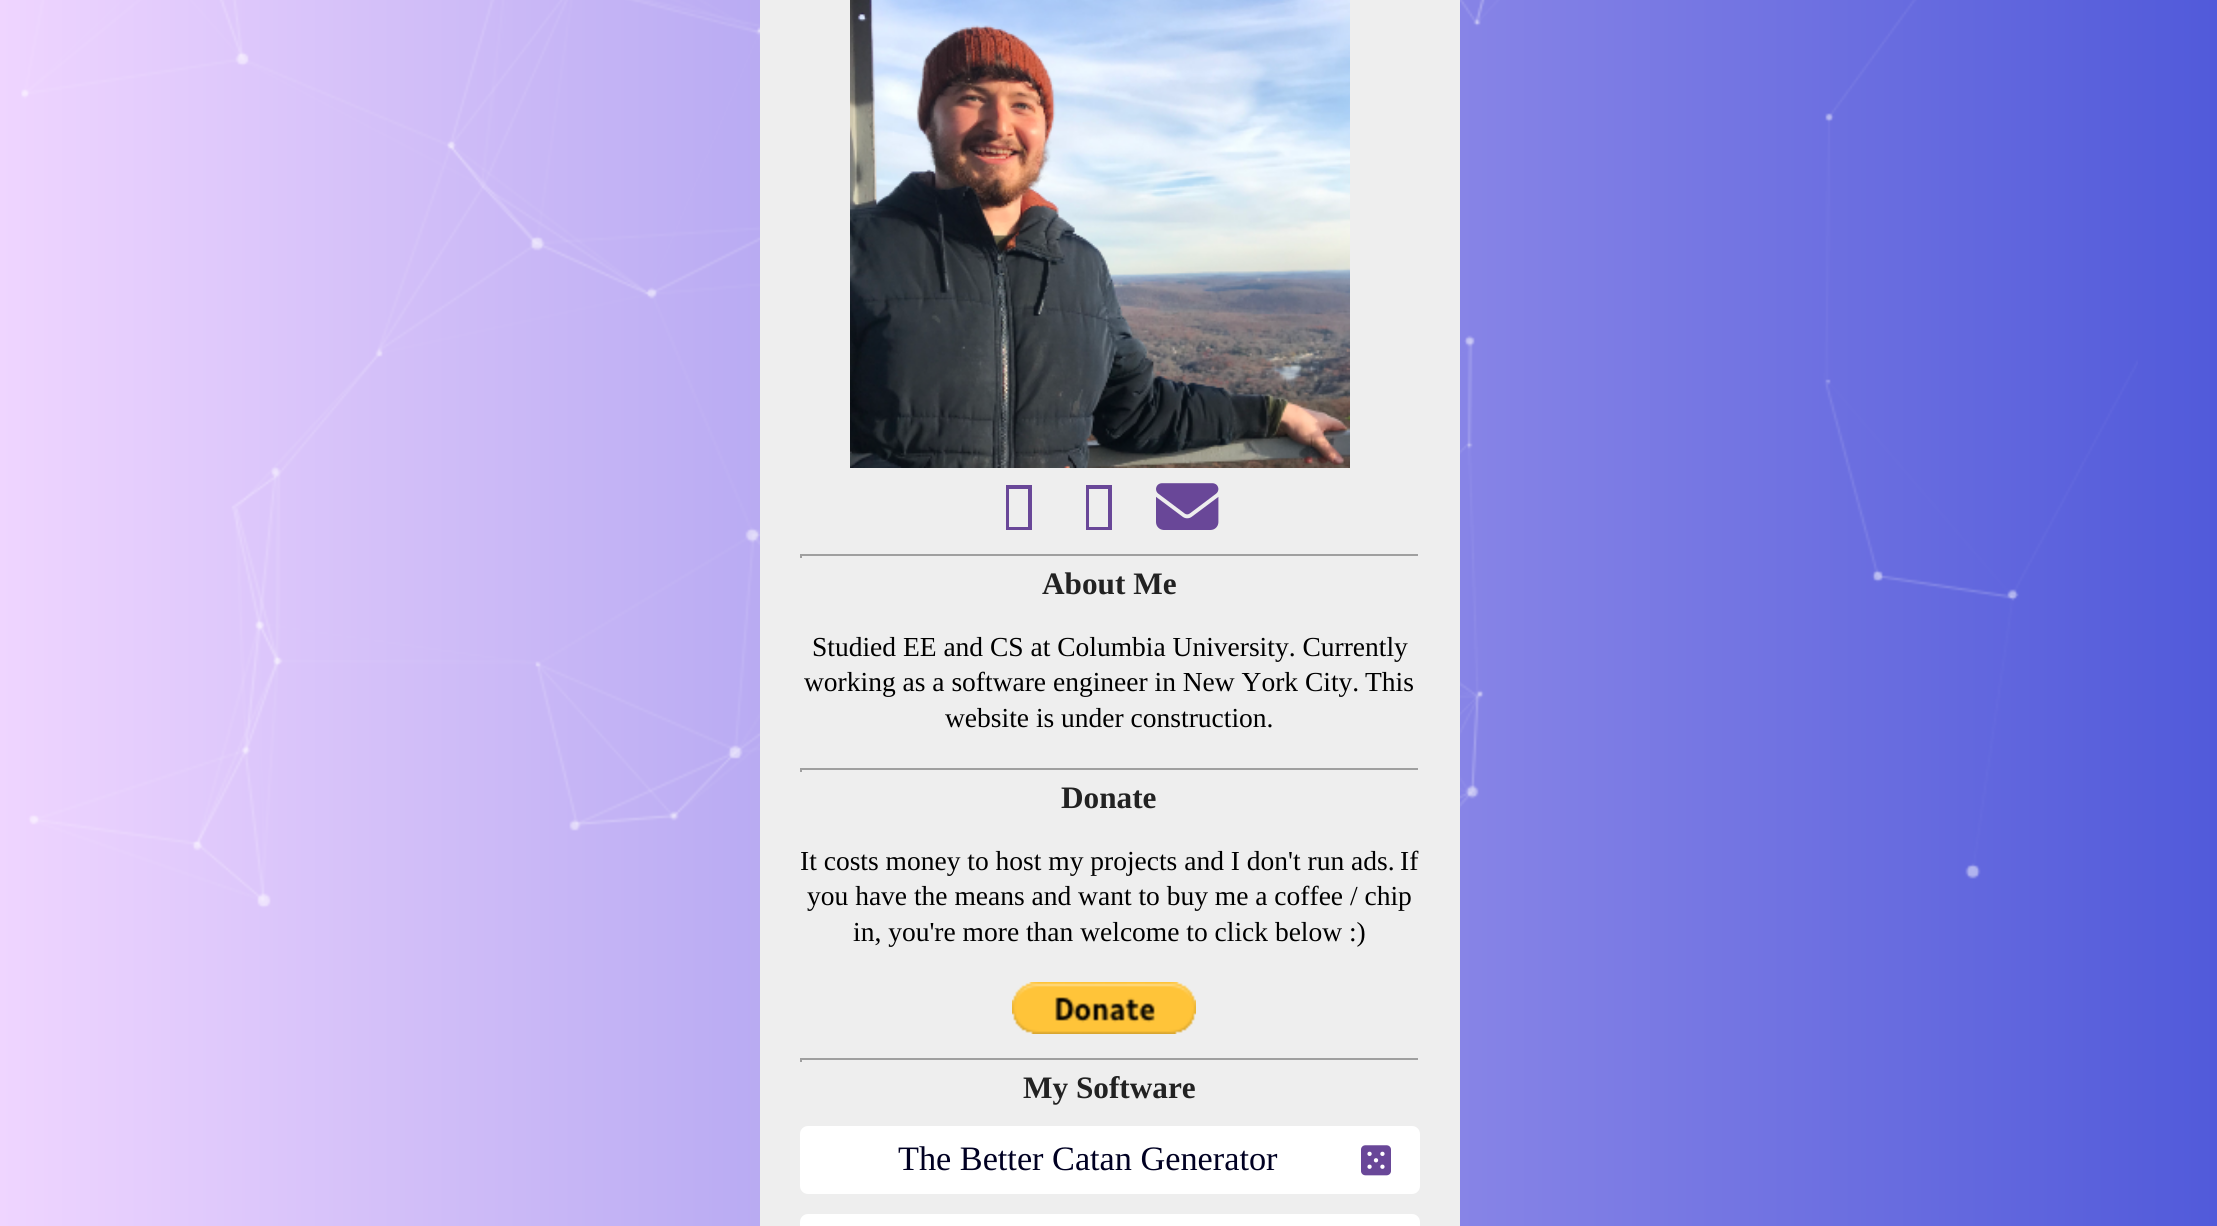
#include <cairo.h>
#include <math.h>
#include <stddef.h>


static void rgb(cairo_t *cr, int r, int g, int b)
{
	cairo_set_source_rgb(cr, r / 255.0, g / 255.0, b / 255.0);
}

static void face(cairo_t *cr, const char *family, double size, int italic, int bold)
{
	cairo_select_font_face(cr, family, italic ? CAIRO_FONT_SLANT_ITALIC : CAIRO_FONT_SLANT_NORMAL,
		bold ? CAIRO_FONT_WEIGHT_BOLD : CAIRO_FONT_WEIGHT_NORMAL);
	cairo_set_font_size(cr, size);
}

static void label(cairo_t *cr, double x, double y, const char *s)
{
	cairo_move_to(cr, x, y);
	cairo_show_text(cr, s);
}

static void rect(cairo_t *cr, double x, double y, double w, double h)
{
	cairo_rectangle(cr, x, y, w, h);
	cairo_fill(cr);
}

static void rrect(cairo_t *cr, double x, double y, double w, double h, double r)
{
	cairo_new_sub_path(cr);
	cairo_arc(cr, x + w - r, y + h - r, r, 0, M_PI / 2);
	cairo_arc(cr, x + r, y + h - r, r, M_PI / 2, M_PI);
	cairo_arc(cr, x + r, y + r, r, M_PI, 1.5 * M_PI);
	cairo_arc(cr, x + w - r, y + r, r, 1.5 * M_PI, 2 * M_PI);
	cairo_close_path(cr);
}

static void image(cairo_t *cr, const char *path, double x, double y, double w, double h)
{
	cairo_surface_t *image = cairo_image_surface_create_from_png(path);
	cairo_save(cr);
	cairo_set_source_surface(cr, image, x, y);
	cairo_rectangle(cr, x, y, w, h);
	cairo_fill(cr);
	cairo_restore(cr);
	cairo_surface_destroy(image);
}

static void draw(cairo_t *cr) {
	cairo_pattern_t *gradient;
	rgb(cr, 255, 255, 255);
	cairo_paint(cr);
	gradient = cairo_pattern_create_linear(0, 377, 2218, 377);
	cairo_pattern_add_color_stop_rgba(gradient, 0, 0.937, 0.835, 1, 1);
	cairo_pattern_add_color_stop_rgba(gradient, 1, 0.318, 0.353, 0.855, 1);
	cairo_set_source(cr, gradient);
	cairo_pattern_destroy(gradient);
	rect(cr, 0, 0, 2217, 1226);
	image(cr, "image0.png", 21, 0, 2117, 908);
	rgb(cr, 238, 238, 238);
	rect(cr, 760, 0, 700, 1226);
	image(cr, "image1.png", 850, 0, 500, 468);
	rgb(cr, 105, 71, 152);
	cairo_new_path(cr);
	cairo_move_to(cr, 1006, 530);
	cairo_line_to(cr, 1006, 485);
	cairo_line_to(cr, 1032, 485);
	cairo_line_to(cr, 1032, 530);
	cairo_close_path(cr);
	cairo_move_to(cr, 1009, 527);
	cairo_line_to(cr, 1028, 527);
	cairo_line_to(cr, 1028, 489);
	cairo_line_to(cr, 1009, 489);
	cairo_close_path(cr);
	cairo_fill(cr);
	cairo_new_path(cr);
	cairo_move_to(cr, 1086, 530);
	cairo_line_to(cr, 1086, 485);
	cairo_line_to(cr, 1112, 485);
	cairo_line_to(cr, 1112, 530);
	cairo_close_path(cr);
	cairo_move_to(cr, 1089, 527);
	cairo_line_to(cr, 1108, 527);
	cairo_line_to(cr, 1108, 489);
	cairo_line_to(cr, 1089, 489);
	cairo_close_path(cr);
	cairo_fill(cr);
	image(cr, "image2.png", 1156, 483, 63, 47);
	rgb(cr, 159, 159, 159);
	rect(cr, 800, 554, 620, 2);
	rgb(cr, 238, 238, 238);
	rect(cr, 1418, 554, 2, 4);
	rgb(cr, 159, 159, 159);
	rect(cr, 800, 554, 2, 4);
	face(cr, "Liberation Serif", 31.25, 0, 1);
	rgb(cr, 34, 34, 34);
	label(cr, 1042, 594, "About Me");
	face(cr, "Liberation Serif", 27.5, 0, 0);
	rgb(cr, 0, 0, 0);
	label(cr, 812, 656, "Studied EE and CS at Columbia University. Currently");
	label(cr, 804, 691, "working as a software engineer in New York City.");
	label(cr, 1365, 691, "This");
	label(cr, 945, 727, "website is under construction.");
	rgb(cr, 159, 159, 159);
	rect(cr, 800, 768, 620, 2);
	rgb(cr, 238, 238, 238);
	rect(cr, 1418, 768, 2, 4);
	rgb(cr, 159, 159, 159);
	rect(cr, 800, 768, 2, 4);
	face(cr, "Liberation Serif", 31.25, 0, 1);
	rgb(cr, 34, 34, 34);
	label(cr, 1061, 808, "Donate");
	face(cr, "Liberation Serif", 27.5, 0, 0);
	rgb(cr, 0, 0, 0);
	label(cr, 800, 870, "It costs money to host my projects and I don't run ads.");
	label(cr, 1400, 870, "If");
	label(cr, 807, 905, "you have the means and want to buy me a coffee / chip");
	label(cr, 853, 941, "in, you're more than welcome to click below :)");
	image(cr, "image3.png", 1012, 982, 184, 52);
	rgb(cr, 159, 159, 159);
	rect(cr, 800, 1058, 620, 2);
	rgb(cr, 238, 238, 238);
	rect(cr, 1418, 1058, 2, 4);
	rgb(cr, 159, 159, 159);
	rect(cr, 800, 1058, 2, 4);
	face(cr, "Liberation Serif", 31.25, 0, 1);
	rgb(cr, 34, 34, 34);
	label(cr, 1023, 1098, "My Software");
	rgb(cr, 255, 255, 255);
	rrect(cr, 800, 1126, 620, 68, 8);
	cairo_fill(cr);
	face(cr, "Liberation Serif", 34.25, 0, 0);
	rgb(cr, 0, 0, 34);
	label(cr, 898, 1170, "The Better Catan Generator");
	image(cr, "image4.png", 1361, 1145, 30, 31);
	rgb(cr, 255, 255, 255);
	rrect(cr, 800, 1214, 620, 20, 8);
	cairo_fill(cr);
}

int main(void) {
	cairo_surface_t *surface = cairo_image_surface_create(CAIRO_FORMAT_RGB24, 2217, 1226);
	cairo_t *cr = cairo_create(surface);
	cairo_font_options_t *options = cairo_font_options_create();
	cairo_font_options_set_hint_metrics(options, CAIRO_HINT_METRICS_OFF);
	cairo_font_options_set_hint_style(options, CAIRO_HINT_STYLE_NONE);
	cairo_set_font_options(cr, options);
	cairo_set_miter_limit(cr, 4);
	draw(cr);
	cairo_surface_write_to_png(surface, "render.png");
	cairo_font_options_destroy(options);
	cairo_destroy(cr);
	cairo_surface_destroy(surface);
	return 0;
}
